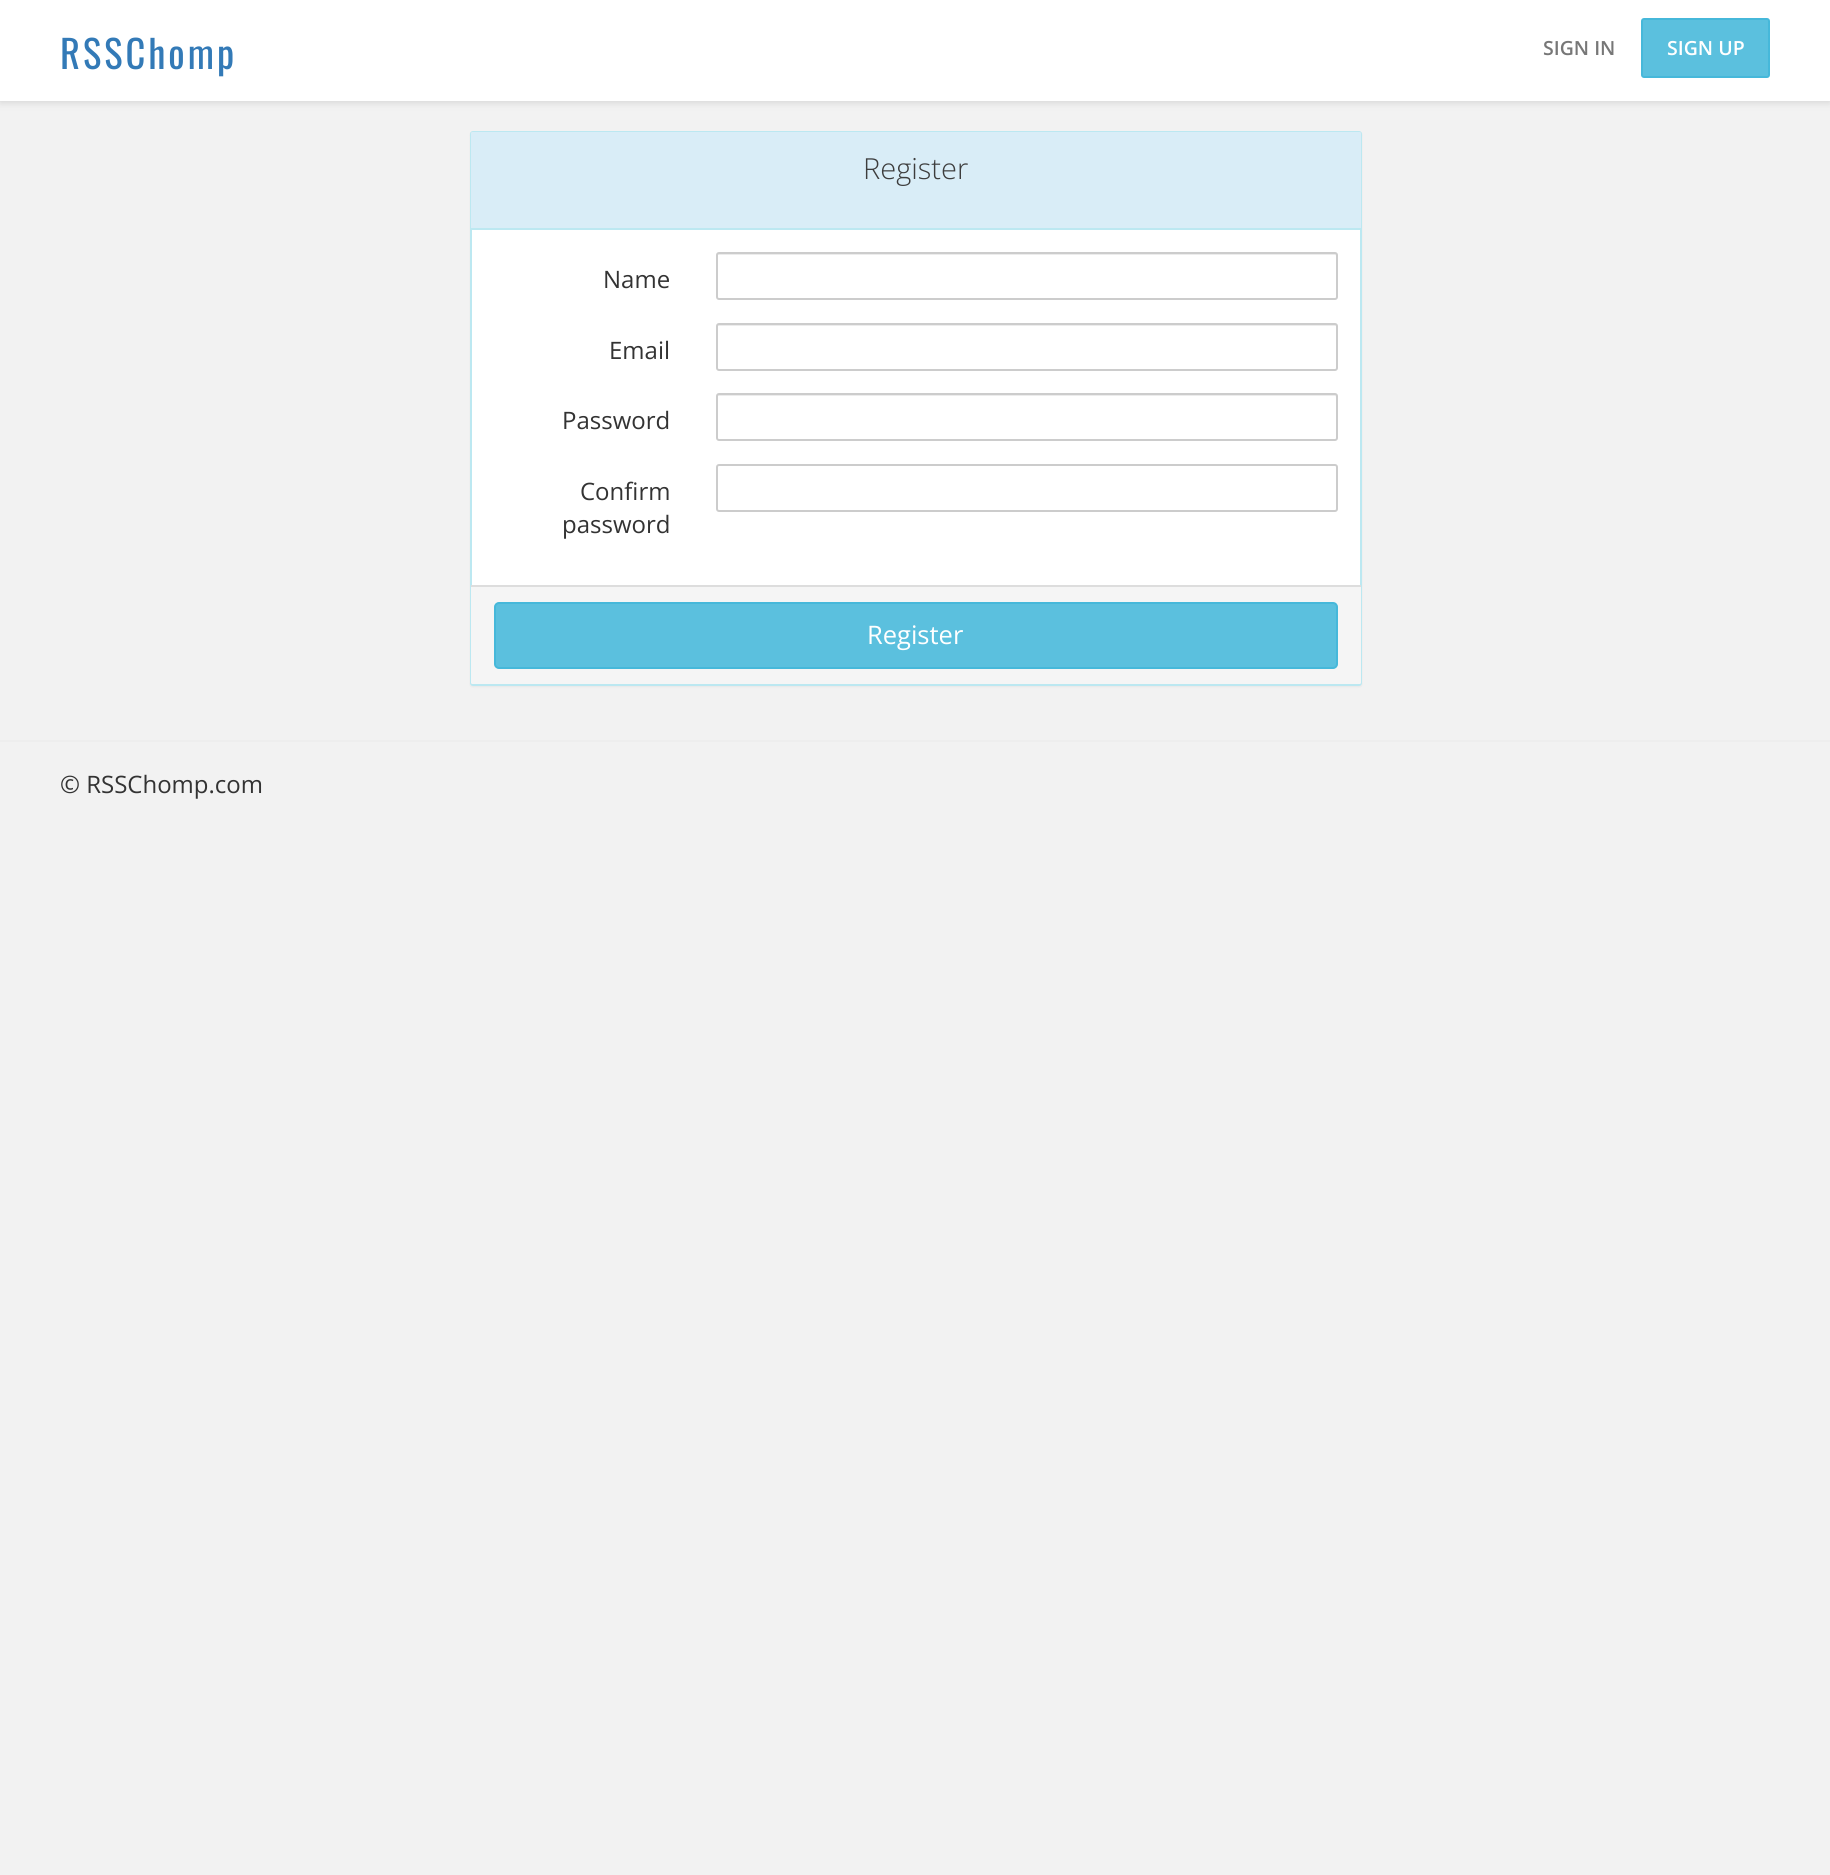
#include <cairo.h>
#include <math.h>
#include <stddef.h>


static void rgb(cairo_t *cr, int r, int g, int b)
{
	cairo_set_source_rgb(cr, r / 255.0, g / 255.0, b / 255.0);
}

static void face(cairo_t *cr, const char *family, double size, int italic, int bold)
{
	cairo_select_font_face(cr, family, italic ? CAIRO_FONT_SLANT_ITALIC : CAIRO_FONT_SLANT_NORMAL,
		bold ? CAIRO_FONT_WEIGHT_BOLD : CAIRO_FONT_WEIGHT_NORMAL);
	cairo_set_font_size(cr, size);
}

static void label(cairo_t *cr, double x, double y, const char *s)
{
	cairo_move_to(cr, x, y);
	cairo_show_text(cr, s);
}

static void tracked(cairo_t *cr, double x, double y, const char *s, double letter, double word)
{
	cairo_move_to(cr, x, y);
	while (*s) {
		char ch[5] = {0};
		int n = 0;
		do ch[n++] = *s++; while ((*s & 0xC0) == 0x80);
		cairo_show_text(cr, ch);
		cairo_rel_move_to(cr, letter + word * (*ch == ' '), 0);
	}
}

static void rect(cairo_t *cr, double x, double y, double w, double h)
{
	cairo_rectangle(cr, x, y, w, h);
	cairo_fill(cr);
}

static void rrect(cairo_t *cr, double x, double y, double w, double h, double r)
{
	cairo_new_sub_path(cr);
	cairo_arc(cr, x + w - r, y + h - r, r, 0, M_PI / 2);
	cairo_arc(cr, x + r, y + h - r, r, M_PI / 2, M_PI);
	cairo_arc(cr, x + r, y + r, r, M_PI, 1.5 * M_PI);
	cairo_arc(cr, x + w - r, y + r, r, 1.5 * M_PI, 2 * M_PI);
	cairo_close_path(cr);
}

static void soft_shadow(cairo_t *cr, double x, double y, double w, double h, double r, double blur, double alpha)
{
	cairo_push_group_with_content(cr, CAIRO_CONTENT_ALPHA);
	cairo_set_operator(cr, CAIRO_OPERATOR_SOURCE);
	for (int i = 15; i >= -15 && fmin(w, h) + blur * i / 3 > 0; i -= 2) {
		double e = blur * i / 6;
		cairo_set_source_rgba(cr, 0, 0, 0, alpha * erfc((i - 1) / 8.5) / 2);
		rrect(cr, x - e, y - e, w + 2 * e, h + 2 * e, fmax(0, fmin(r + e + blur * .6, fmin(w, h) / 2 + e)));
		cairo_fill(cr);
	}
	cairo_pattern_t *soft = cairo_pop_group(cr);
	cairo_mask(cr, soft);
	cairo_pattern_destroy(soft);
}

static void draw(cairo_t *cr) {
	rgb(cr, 242, 242, 242);
	cairo_paint(cr);
	rgb(cr, 209, 209, 209);
	soft_shadow(cr, 0, 2, 1830, 100, 0, 4, 1);
	rgb(cr, 255, 255, 255);
	rect(cr, 0, 0, 1830, 101);
	face(cr, "Oswald", 38.5, 0, 0);
	rgb(cr, 51, 122, 183);
	tracked(cr, 60, 69, "RSSChomp", 3, 0);
	face(cr, "Open Sans SemiBold", 19.5, 0, 0);
	rgb(cr, 119, 119, 119);
	label(cr, 1543, 55, "SIGN IN");
	rgb(cr, 91, 192, 222);
	rrect(cr, 1642, 19, 127, 58, 2);
	cairo_fill_preserve(cr);
	rgb(cr, 70, 184, 218);
	cairo_stroke(cr);
	rgb(cr, 255, 255, 255);
	label(cr, 1667, 55, "SIGN UP");
	rgb(cr, 0, 0, 0);
	soft_shadow(cr, 470, 132, 892, 555, 3, 1, 0.05);
	rgb(cr, 255, 255, 255);
	rrect(cr, 471, 132, 890, 553, 2);
	cairo_fill_preserve(cr);
	rgb(cr, 188, 232, 241);
	cairo_stroke(cr);
	rgb(cr, 217, 237, 247);
	cairo_new_path(cr);
	cairo_move_to(cr, 472.5, 132);
	cairo_line_to(cr, 1359.5, 132);
	cairo_curve_to(cr, 1360.5, 132, 1361, 132.5, 1361, 133.5);
	cairo_line_to(cr, 1361, 230);
	cairo_line_to(cr, 471, 230);
	cairo_line_to(cr, 471, 133.5);
	cairo_curve_to(cr, 471, 132.5, 471.5, 132, 472.5, 132);
	cairo_close_path(cr);
	cairo_fill(cr);
	rgb(cr, 188, 232, 241);
	rect(cr, 471, 228, 890, 2);
	face(cr, "Open Sans Light", 29, 0, 0);
	rgb(cr, 61, 61, 61);
	label(cr, 863, 179, "Register");
	face(cr, "Open Sans", 24, 0, 0);
	rgb(cr, 51, 51, 51);
	label(cr, 603, 288, "Name");
	rgb(cr, 236, 236, 236);
	cairo_new_path(cr);
	cairo_move_to(cr, 718, 255);
	cairo_line_to(cr, 1335, 255);
	cairo_curve_to(cr, 1336, 255, 1336, 256, 1336, 256);
	cairo_line_to(cr, 1336, 299);
	cairo_curve_to(cr, 1337, 299, 1337, 298, 1337, 298);
	cairo_line_to(cr, 1337, 256);
	cairo_curve_to(cr, 1337, 255, 1336, 254, 1336, 254);
	cairo_line_to(cr, 718, 254);
	cairo_curve_to(cr, 718, 254, 717, 255, 717, 256);
	cairo_close_path(cr);
	cairo_fill(cr);
	rrect(cr, 717, 253, 620, 46, 2);
	rgb(cr, 204, 204, 204);
	cairo_stroke(cr);
	rgb(cr, 51, 51, 51);
	label(cr, 609, 359, "Email");
	rgb(cr, 236, 236, 236);
	cairo_new_path(cr);
	cairo_move_to(cr, 718, 326);
	cairo_line_to(cr, 1335, 326);
	cairo_curve_to(cr, 1336, 326, 1336, 326, 1336, 327);
	cairo_line_to(cr, 1336, 369);
	cairo_line_to(cr, 1337, 368);
	cairo_line_to(cr, 1337, 325);
	cairo_line_to(cr, 1336, 324);
	cairo_line_to(cr, 718, 324);
	cairo_line_to(cr, 717, 325);
	cairo_line_to(cr, 717, 327);
	cairo_close_path(cr);
	cairo_fill(cr);
	rrect(cr, 717, 324, 620, 46, 2);
	rgb(cr, 204, 204, 204);
	cairo_stroke(cr);
	rgb(cr, 51, 51, 51);
	label(cr, 562, 429, "Password");
	rgb(cr, 236, 236, 236);
	cairo_new_path(cr);
	cairo_move_to(cr, 718, 396);
	cairo_line_to(cr, 1335, 396);
	cairo_curve_to(cr, 1336, 396, 1336, 397, 1336, 398);
	cairo_line_to(cr, 1336, 440);
	cairo_line_to(cr, 1337, 439);
	cairo_line_to(cr, 1337, 396);
	cairo_line_to(cr, 1336, 395);
	cairo_line_to(cr, 718, 395);
	cairo_line_to(cr, 717, 396);
	cairo_line_to(cr, 717, 398);
	cairo_close_path(cr);
	cairo_fill(cr);
	rrect(cr, 717, 394, 620, 46, 2);
	rgb(cr, 204, 204, 204);
	cairo_stroke(cr);
	rgb(cr, 51, 51, 51);
	label(cr, 580, 500, "Confirm");
	label(cr, 562, 533, "password");
	rrect(cr, 717, 465, 620, 46, 2);
	rgb(cr, 204, 204, 204);
	cairo_stroke(cr);
	rgb(cr, 245, 245, 245);
	cairo_new_path(cr);
	cairo_move_to(cr, 471, 585);
	cairo_line_to(cr, 1361, 585);
	cairo_line_to(cr, 1361, 682.5);
	cairo_curve_to(cr, 1361, 683.5, 1360.5, 684, 1359.5, 684);
	cairo_line_to(cr, 472.5, 684);
	cairo_curve_to(cr, 471.5, 684, 471, 683.5, 471, 682.5);
	cairo_close_path(cr);
	cairo_fill(cr);
	rgb(cr, 221, 221, 221);
	rect(cr, 471, 585, 890, 2);
	rgb(cr, 91, 192, 222);
	rrect(cr, 495, 603, 842, 65, 4);
	cairo_fill_preserve(cr);
	rgb(cr, 70, 184, 218);
	cairo_stroke(cr);
	face(cr, "Open Sans", 25.5, 0, 0);
	rgb(cr, 255, 255, 255);
	label(cr, 867, 644, "Register");
	rgb(cr, 238, 238, 238);
	rect(cr, 0, 740, 1830, 2);
	face(cr, "Open Sans", 24, 0, 0);
	rgb(cr, 51, 51, 51);
	label(cr, 60, 793, "© RSSChomp.com");
}

int main(void) {
	cairo_surface_t *surface = cairo_image_surface_create(CAIRO_FORMAT_RGB24, 1830, 1875);
	cairo_t *cr = cairo_create(surface);
	cairo_font_options_t *options = cairo_font_options_create();
	cairo_font_options_set_hint_metrics(options, CAIRO_HINT_METRICS_OFF);
	cairo_font_options_set_hint_style(options, CAIRO_HINT_STYLE_NONE);
	cairo_set_font_options(cr, options);
	cairo_set_miter_limit(cr, 4);
	draw(cr);
	cairo_surface_write_to_png(surface, "render.png");
	cairo_font_options_destroy(options);
	cairo_destroy(cr);
	cairo_surface_destroy(surface);
	return 0;
}
